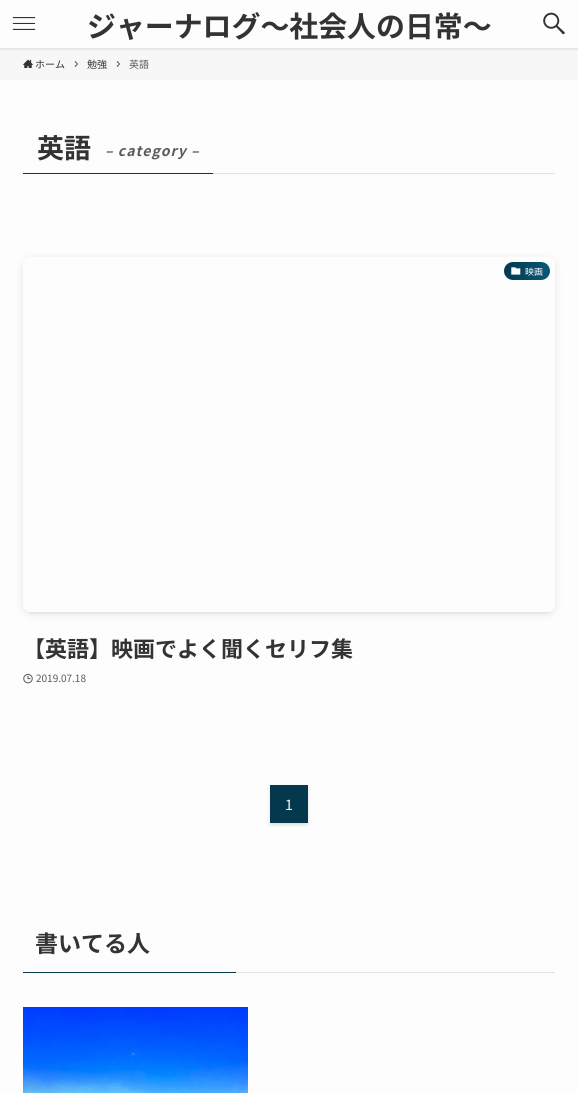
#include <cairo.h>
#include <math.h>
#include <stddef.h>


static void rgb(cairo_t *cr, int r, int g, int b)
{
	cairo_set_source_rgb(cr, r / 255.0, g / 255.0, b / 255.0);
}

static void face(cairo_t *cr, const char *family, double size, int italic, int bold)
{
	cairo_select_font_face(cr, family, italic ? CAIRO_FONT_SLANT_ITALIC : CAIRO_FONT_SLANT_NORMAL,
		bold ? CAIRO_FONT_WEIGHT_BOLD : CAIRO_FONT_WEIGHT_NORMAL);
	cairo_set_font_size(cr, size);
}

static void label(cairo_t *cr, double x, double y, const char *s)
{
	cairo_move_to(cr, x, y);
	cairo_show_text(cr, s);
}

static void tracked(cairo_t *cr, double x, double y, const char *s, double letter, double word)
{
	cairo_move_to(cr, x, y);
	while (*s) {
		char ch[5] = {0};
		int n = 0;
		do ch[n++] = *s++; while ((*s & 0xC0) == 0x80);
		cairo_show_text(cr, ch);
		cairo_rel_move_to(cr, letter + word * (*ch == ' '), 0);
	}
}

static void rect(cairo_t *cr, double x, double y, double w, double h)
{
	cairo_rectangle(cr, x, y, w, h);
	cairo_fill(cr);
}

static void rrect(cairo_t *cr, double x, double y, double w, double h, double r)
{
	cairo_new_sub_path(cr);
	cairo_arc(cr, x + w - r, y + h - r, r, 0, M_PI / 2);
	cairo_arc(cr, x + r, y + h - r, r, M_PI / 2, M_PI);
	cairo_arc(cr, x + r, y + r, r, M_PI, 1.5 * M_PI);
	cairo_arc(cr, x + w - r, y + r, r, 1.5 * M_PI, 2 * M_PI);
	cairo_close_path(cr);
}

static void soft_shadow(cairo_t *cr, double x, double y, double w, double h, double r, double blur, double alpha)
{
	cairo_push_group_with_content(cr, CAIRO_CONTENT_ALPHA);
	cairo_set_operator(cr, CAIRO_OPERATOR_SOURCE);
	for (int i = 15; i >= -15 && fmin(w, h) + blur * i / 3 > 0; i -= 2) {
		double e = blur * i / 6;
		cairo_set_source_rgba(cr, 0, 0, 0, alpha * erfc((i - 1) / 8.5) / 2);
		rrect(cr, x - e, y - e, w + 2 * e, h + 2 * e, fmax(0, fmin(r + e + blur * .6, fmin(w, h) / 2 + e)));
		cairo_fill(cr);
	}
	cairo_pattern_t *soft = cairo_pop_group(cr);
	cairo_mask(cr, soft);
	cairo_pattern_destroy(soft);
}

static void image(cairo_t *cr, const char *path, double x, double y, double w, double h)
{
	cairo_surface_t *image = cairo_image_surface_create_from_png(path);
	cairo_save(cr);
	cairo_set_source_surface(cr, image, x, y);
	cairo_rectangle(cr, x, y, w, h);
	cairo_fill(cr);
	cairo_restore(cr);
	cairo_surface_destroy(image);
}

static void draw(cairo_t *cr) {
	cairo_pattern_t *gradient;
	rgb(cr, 253, 253, 253);
	cairo_paint(cr);
	rgb(cr, 247, 247, 247);
	rect(cr, 0, 48, 578, 32);
	cairo_save(cr);
	cairo_rectangle(cr, 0, 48, 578, 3);
	cairo_clip(cr);
	rgb(cr, 0, 0, 0);
	soft_shadow(cr, 0, 1, 578, 48, 0, 2, 0.12);
	cairo_restore(cr);
	image(cr, "image0.png", 12, 17, 24, 13);
	face(cr, "Noto Sans JP", 28.9, 0, 1);
	rgb(cr, 51, 51, 51);
	label(cr, 87, 37, "ジャーナログ～社会人の日常～");
	image(cr, "image1.png", 543, 12, 22, 23);
	image(cr, "image2.png", 23, 59, 10, 9);
	face(cr, "Noto Sans JP", 10, 0, 0);
	label(cr, 35, 68, "ホーム");
	rgb(cr, 90, 90, 90);
	cairo_new_path(cr);
	cairo_move_to(cr, 75.5, 61);
	cairo_line_to(cr, 78, 64);
	cairo_line_to(cr, 77.5, 64.5);
	cairo_line_to(cr, 74.5, 62);
	cairo_close_path(cr);
	cairo_fill(cr);
	cairo_new_path(cr);
	cairo_move_to(cr, 77.5, 63.5);
	cairo_line_to(cr, 78, 64);
	cairo_line_to(cr, 75.5, 67);
	cairo_line_to(cr, 74.5, 66);
	cairo_close_path(cr);
	cairo_fill(cr);
	rgb(cr, 51, 51, 51);
	label(cr, 87, 68, "勉強");
	rgb(cr, 90, 90, 90);
	cairo_new_path(cr);
	cairo_move_to(cr, 117.5, 61);
	cairo_line_to(cr, 120, 64);
	cairo_line_to(cr, 119.5, 64.5);
	cairo_line_to(cr, 116.5, 62);
	cairo_close_path(cr);
	cairo_fill(cr);
	cairo_new_path(cr);
	cairo_move_to(cr, 119.5, 63.5);
	cairo_line_to(cr, 120, 64);
	cairo_line_to(cr, 117.5, 67);
	cairo_line_to(cr, 116.5, 66);
	cairo_close_path(cr);
	cairo_fill(cr);
	label(cr, 129, 68, "英語");
	rgb(cr, 227, 227, 227);
	rect(cr, 213, 173, 342, 1);
	rgb(cr, 4, 56, 76);
	rect(cr, 23, 173, 190, 1);
	face(cr, "Noto Sans JP", 27, 0, 1);
	rgb(cr, 51, 51, 51);
	label(cr, 37, 158, "英語");
	face(cr, "Noto Sans JP", 14, 1, 1);
	rgb(cr, 90, 90, 90);
	tracked(cr, 105, 156, "– category –", 1, 0);
	cairo_save(cr);
	cairo_rectangle(cr, 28, 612, 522, 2);
	cairo_clip(cr);
	rgb(cr, 0, 0, 0);
	soft_shadow(cr, 27, 265, 524, 347, 4, 2, 0.1);
	cairo_restore(cr);
	cairo_save(cr);
	cairo_set_fill_rule(cr, CAIRO_FILL_RULE_EVEN_ODD);
	cairo_new_path(cr);
	cairo_move_to(cr, 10, 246);
	cairo_line_to(cr, 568, 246);
	cairo_line_to(cr, 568, 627);
	cairo_line_to(cr, 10, 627);
	cairo_close_path(cr);
	cairo_move_to(cr, 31, 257);
	cairo_line_to(cr, 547, 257);
	cairo_curve_to(cr, 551.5, 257, 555, 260.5, 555, 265);
	cairo_line_to(cr, 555, 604);
	cairo_curve_to(cr, 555, 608.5, 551.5, 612, 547, 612);
	cairo_line_to(cr, 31, 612);
	cairo_curve_to(cr, 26.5, 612, 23, 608.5, 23, 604);
	cairo_line_to(cr, 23, 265);
	cairo_curve_to(cr, 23, 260.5, 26.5, 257, 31, 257);
	cairo_close_path(cr);
	cairo_clip(cr);
	rgb(cr, 0, 0, 0);
	soft_shadow(cr, 23, 259, 532, 355, 8, 4, 0.1);
	cairo_restore(cr);
	gradient = cairo_pattern_create_linear(503, 267, 551, 275);
	cairo_pattern_add_color_stop_rgba(gradient, 0, 0.016, 0.22, 0.298, 1);
	cairo_pattern_add_color_stop_rgba(gradient, 1, 0.024, 0.353, 0.478, 1);
	cairo_set_source(cr, gradient);
	cairo_pattern_destroy(gradient);
	rrect(cr, 504, 262, 46, 18, 9);
	cairo_fill(cr);
	image(cr, "image3.png", 511, 267, 10, 8);
	face(cr, "Noto Sans JP", 9, 0, 0);
	rgb(cr, 255, 255, 255);
	label(cr, 525, 275, "映画");
	face(cr, "Noto Sans JP", 22, 0, 1);
	rgb(cr, 51, 51, 51);
	label(cr, 23, 657, "【英語】映画でよく聞くセリフ集");
	image(cr, "image4.png", 23, 673, 10, 11);
	face(cr, "Noto Sans JP", 10, 0, 0);
	rgb(cr, 90, 90, 90);
	label(cr, 36, 682, "2019.07.18");
	rgb(cr, 0, 0, 0);
	soft_shadow(cr, 274, 793, 30, 30, 0, 2, 0.1);
	soft_shadow(cr, 270, 787, 38, 38, 0, 2, 0.1);
	rgb(cr, 4, 56, 76);
	rect(cr, 270, 785, 38, 38);
	face(cr, "Noto Sans JP", 14, 0, 0);
	rgb(cr, 255, 255, 255);
	label(cr, 285, 810, "1");
	face(cr, "Noto Sans JP", 23, 0, 1);
	rgb(cr, 51, 51, 51);
	label(cr, 35, 952, "書いてる人");
	rgb(cr, 4, 56, 76);
	rect(cr, 23, 972, 213, 1);
	rgb(cr, 227, 227, 227);
	rect(cr, 236, 972, 319, 1);
	image(cr, "image5.png", 23, 1007, 225, 86);
}

int main(void) {
	cairo_surface_t *surface = cairo_image_surface_create(CAIRO_FORMAT_RGB24, 578, 1093);
	cairo_t *cr = cairo_create(surface);
	cairo_font_options_t *options = cairo_font_options_create();
	cairo_font_options_set_hint_metrics(options, CAIRO_HINT_METRICS_OFF);
	cairo_font_options_set_hint_style(options, CAIRO_HINT_STYLE_NONE);
	cairo_set_font_options(cr, options);
	cairo_set_miter_limit(cr, 4);
	draw(cr);
	cairo_surface_write_to_png(surface, "render.png");
	cairo_font_options_destroy(options);
	cairo_destroy(cr);
	cairo_surface_destroy(surface);
	return 0;
}
